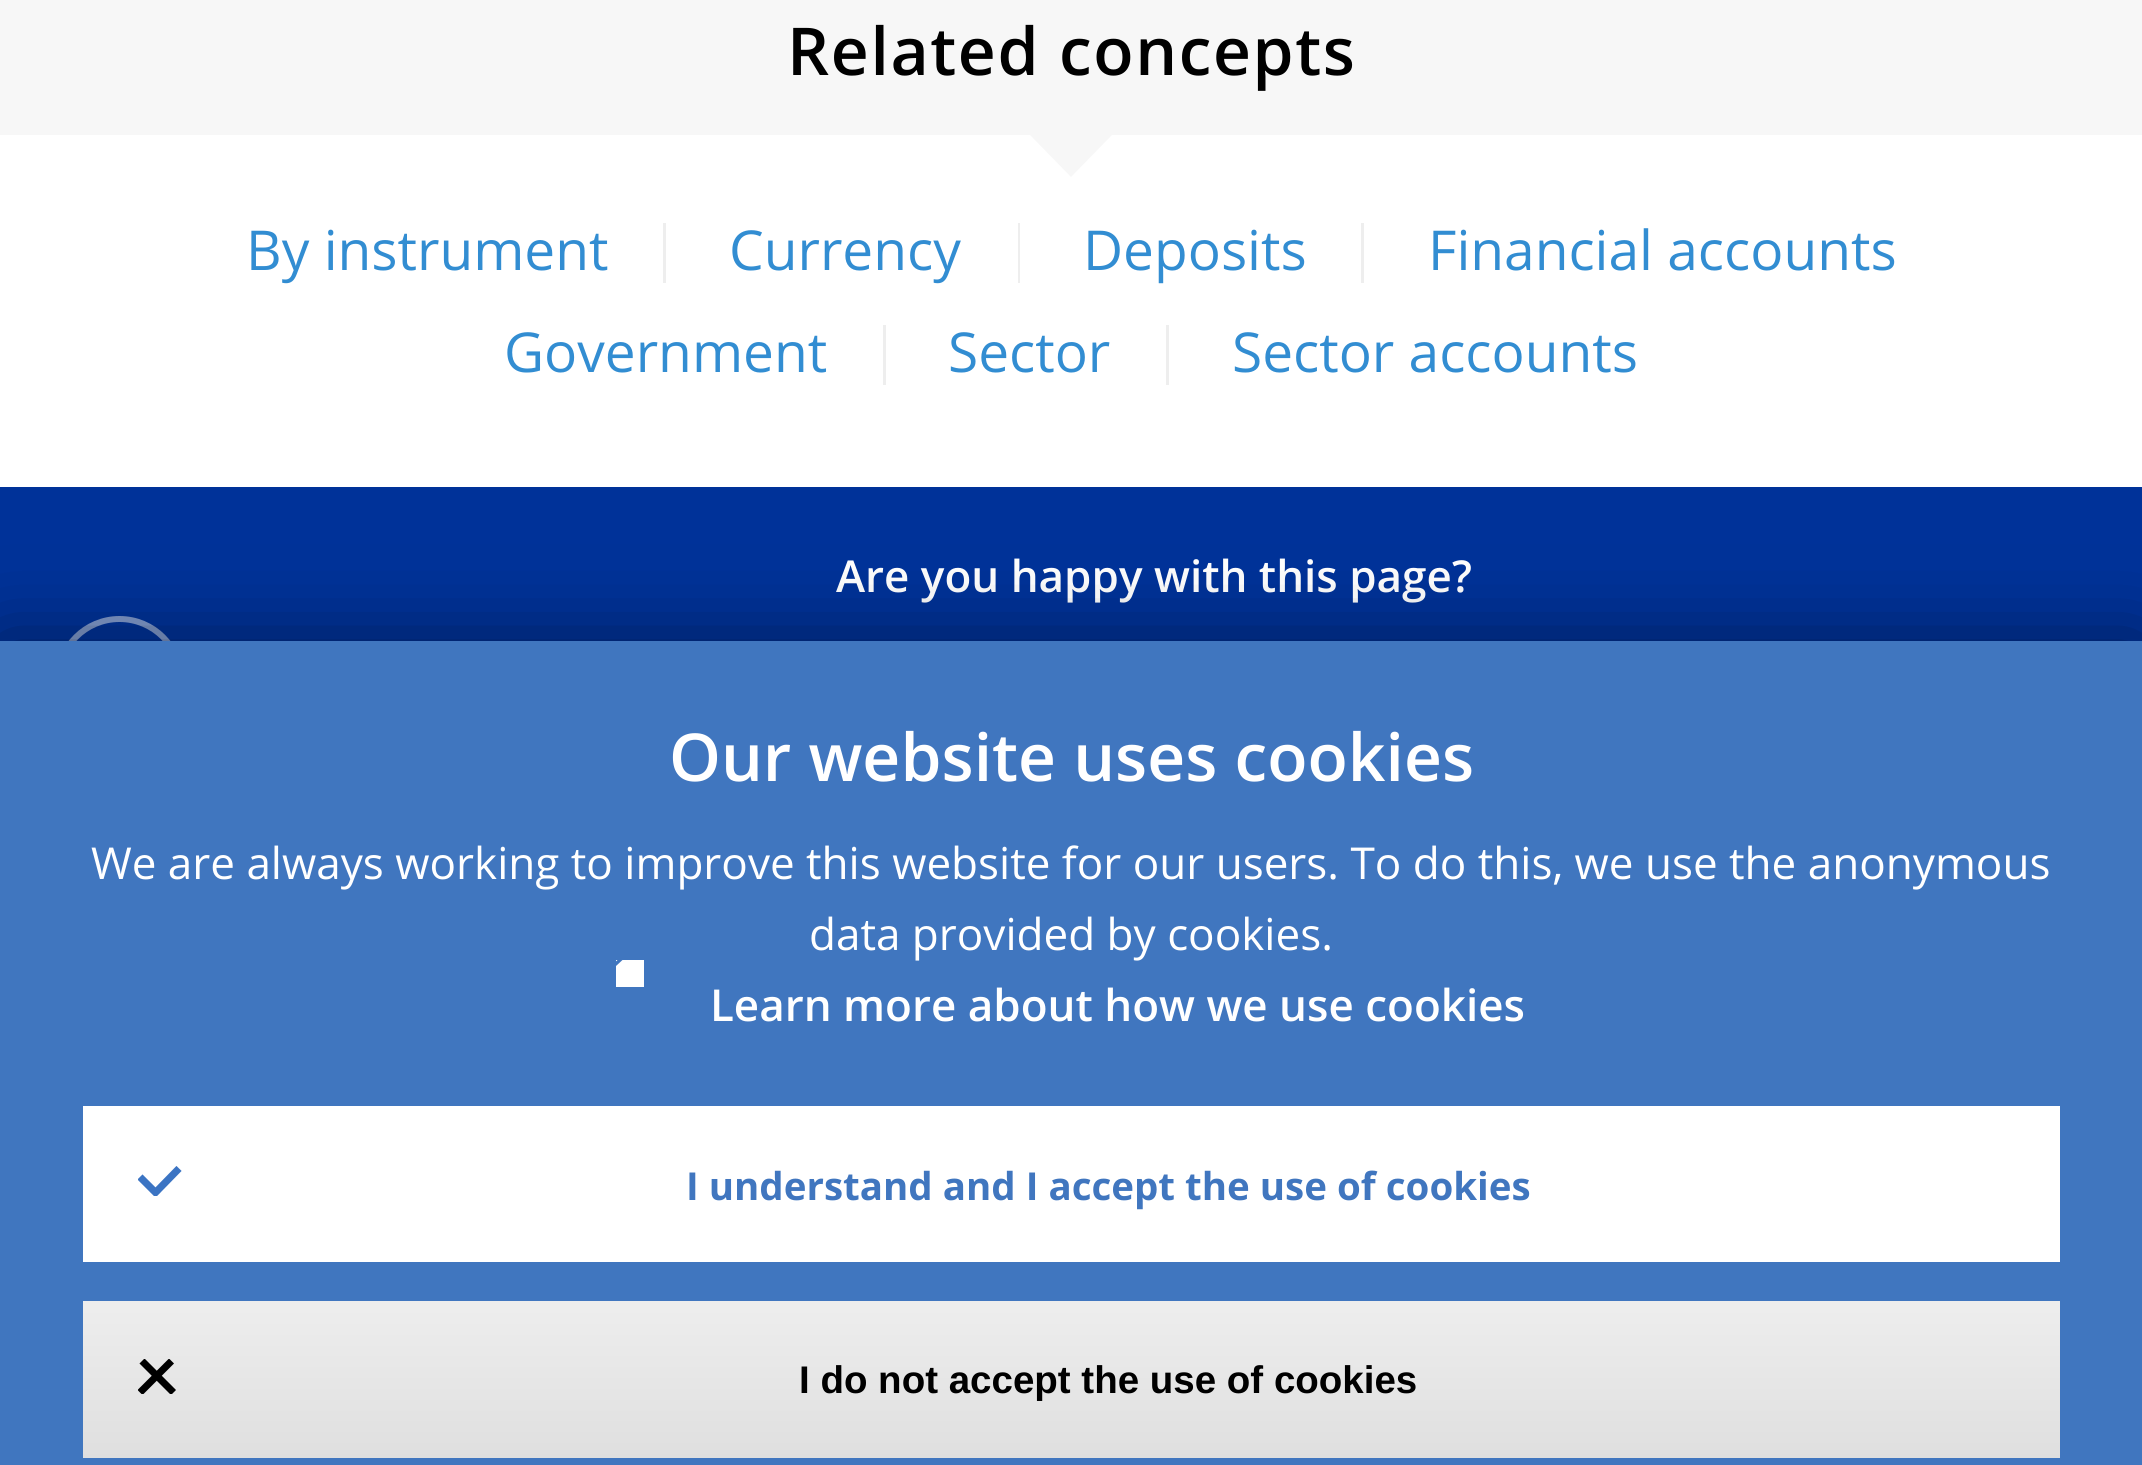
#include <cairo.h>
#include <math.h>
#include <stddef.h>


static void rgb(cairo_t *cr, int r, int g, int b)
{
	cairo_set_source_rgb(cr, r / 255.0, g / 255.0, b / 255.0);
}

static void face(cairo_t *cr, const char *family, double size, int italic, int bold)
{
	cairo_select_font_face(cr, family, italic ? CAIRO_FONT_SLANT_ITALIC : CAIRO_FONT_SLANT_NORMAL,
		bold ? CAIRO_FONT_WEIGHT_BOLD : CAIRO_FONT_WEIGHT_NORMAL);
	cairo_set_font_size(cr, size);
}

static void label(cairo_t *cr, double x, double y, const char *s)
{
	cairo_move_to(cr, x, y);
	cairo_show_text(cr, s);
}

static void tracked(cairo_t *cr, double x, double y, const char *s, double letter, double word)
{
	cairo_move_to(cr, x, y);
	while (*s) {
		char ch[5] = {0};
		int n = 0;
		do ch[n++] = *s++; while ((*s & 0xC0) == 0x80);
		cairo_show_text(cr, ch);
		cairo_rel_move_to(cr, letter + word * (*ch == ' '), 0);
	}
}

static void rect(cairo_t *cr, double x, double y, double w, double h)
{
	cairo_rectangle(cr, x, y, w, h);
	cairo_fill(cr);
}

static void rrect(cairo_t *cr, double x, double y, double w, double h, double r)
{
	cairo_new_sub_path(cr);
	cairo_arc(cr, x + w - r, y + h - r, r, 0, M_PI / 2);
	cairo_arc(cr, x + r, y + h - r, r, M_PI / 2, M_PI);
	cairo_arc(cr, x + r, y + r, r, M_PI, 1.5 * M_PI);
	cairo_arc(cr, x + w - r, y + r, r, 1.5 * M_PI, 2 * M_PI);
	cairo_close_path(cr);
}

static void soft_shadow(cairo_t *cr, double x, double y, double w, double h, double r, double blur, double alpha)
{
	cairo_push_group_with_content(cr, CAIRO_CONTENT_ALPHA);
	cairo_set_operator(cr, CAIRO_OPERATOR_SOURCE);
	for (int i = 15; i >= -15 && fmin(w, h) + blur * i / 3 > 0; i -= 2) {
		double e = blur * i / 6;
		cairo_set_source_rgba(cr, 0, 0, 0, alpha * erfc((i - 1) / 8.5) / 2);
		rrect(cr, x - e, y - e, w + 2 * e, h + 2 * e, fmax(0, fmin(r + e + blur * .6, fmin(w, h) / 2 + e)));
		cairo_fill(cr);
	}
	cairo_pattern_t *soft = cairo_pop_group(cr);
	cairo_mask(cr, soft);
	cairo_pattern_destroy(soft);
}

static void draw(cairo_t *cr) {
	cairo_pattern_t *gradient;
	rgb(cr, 255, 255, 255);
	cairo_paint(cr);
	rgb(cr, 247, 247, 247);
	rect(cr, 0, 0, 2142, 135);
	face(cr, "Open Sans SemiBold", 66, 0, 0);
	rgb(cr, 0, 0, 0);
	tracked(cr, 787, 75, "Related concepts", 1.6, 0);
	rgb(cr, 247, 247, 247);
	cairo_new_path(cr);
	cairo_move_to(cr, 1112, 135);
	cairo_line_to(cr, 1030, 135);
	cairo_line_to(cr, 1071, 177);
	cairo_close_path(cr);
	cairo_fill(cr);
	face(cr, "Open Sans", 55, 0, 0);
	rgb(cr, 50, 141, 210);
	label(cr, 246, 270, "By instrument");
	rgb(cr, 238, 238, 238);
	rect(cr, 663, 223, 3, 60);
	rgb(cr, 50, 141, 210);
	label(cr, 729, 270, "Currency");
	rgb(cr, 238, 238, 238);
	rect(cr, 1018, 223, 2, 60);
	rgb(cr, 50, 141, 210);
	label(cr, 1083, 270, "Deposits");
	rgb(cr, 238, 238, 238);
	rect(cr, 1361, 223, 3, 60);
	rgb(cr, 50, 141, 210);
	label(cr, 1428, 270, "Financial accounts");
	label(cr, 504, 372, "Government");
	rgb(cr, 238, 238, 238);
	rect(cr, 883, 325, 3, 60);
	rgb(cr, 50, 141, 210);
	label(cr, 948, 372, "Sector");
	rgb(cr, 238, 238, 238);
	rect(cr, 1166, 325, 3, 60);
	rgb(cr, 50, 141, 210);
	label(cr, 1232, 372, "Sector accounts");
	rgb(cr, 0, 50, 153);
	rect(cr, 0, 487, 2142, 154);
	face(cr, "Open Sans SemiBold", 44, 0, 0);
	rgb(cr, 255, 255, 255);
	label(cr, 836, 592, "Are you happy with this page?");
	cairo_new_path(cr);
	cairo_arc(cr, 119.5, 680.5, 61.5, 0, 2 * M_PI);
	rgb(cr, 128, 153, 204);
	cairo_set_line_width(cr, 6);
	cairo_stroke(cr);
	rgb(cr, 0, 0, 0);
	soft_shadow(cr, 0, 646, 2142, 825, 0, 41, 0.5);
	rgb(cr, 64, 118, 191);
	rect(cr, 0, 641, 2142, 824);
	face(cr, "Open Sans SemiBold", 66, 0, 0);
	rgb(cr, 255, 255, 255);
	label(cr, 669, 781, "Our website uses cookies");
	face(cr, "Open Sans", 44, 0, 0);
	label(cr, 91, 879, "We are always working to improve this website for our users. To do this, we use the anonymous");
	label(cr, 809, 950, "data provided by cookies.");
	rect(cr, 616, 960, 28, 27);
	cairo_save(cr);
	cairo_rectangle(cr, 616, 960, 28, 27);
	cairo_clip(cr);
	rgb(cr, 64, 118, 191);
	cairo_new_path(cr);
	cairo_move_to(cr, 609.5, 972);
	cairo_line_to(cr, 622.5, 960);
	cairo_line_to(cr, 609.5, 948);
	cairo_line_to(cr, 609.5, 953);
	cairo_line_to(cr, 617.5, 960);
	cairo_line_to(cr, 609.5, 967.5);
	cairo_close_path(cr);
	cairo_fill(cr);
	cairo_restore(cr);
	face(cr, "Open Sans SemiBold", 44, 0, 0);
	label(cr, 710, 1021, "Learn more about how we use cookies");
	rect(cr, 83, 1106, 1977, 156);
	cairo_save(cr);
	cairo_rectangle(cr, 138, 1166, 44, 30);
	cairo_clip(cr);
	cairo_new_path(cr);
	cairo_move_to(cr, 142.5, 1179.5);
	cairo_line_to(cr, 155.5, 1192.5);
	cairo_move_to(cr, 155.5, 1192.5);
	cairo_line_to(cr, 176.5, 1171);
	rgb(cr, 59, 116, 195);
	cairo_set_line_width(cr, 7.2);
	cairo_set_line_cap(cr, CAIRO_LINE_CAP_SQUARE);
	cairo_stroke(cr);
	cairo_restore(cr);
	face(cr, "Open Sans", 38.5, 0, 1);
	rgb(cr, 64, 118, 191);
	label(cr, 686, 1200, "I understand and I accept the use of cookies");
	gradient = cairo_pattern_create_linear(1071, 1301, 1071, 1458);
	cairo_pattern_add_color_stop_rgba(gradient, 0.05, 0.929, 0.929, 0.929, 1);
	cairo_pattern_add_color_stop_rgba(gradient, 1, 0.875, 0.875, 0.875, 1);
	cairo_set_source(cr, gradient);
	cairo_pattern_destroy(gradient);
	rect(cr, 83, 1301, 1977, 157);
	cairo_save(cr);
	cairo_rectangle(cr, 138, 1359, 38, 35);
	cairo_clip(cr);
	cairo_new_path(cr);
	cairo_move_to(cr, 171, 1390);
	cairo_line_to(cr, 144.5, 1363.5);
	cairo_move_to(cr, 142.5, 1390);
	cairo_line_to(cr, 169, 1363.5);
	rgb(cr, 0, 0, 0);
	cairo_set_line_width(cr, 7.1);
	cairo_set_line_cap(cr, CAIRO_LINE_CAP_SQUARE);
	cairo_stroke(cr);
	cairo_restore(cr);
	face(cr, "Liberation Sans", 38.5, 0, 1);
	rgb(cr, 0, 0, 0);
	label(cr, 799, 1393, "I do not accept the use of cookies");
}

int main(void) {
	cairo_surface_t *surface = cairo_image_surface_create(CAIRO_FORMAT_RGB24, 2142, 1465);
	cairo_t *cr = cairo_create(surface);
	cairo_font_options_t *options = cairo_font_options_create();
	cairo_font_options_set_hint_metrics(options, CAIRO_HINT_METRICS_OFF);
	cairo_font_options_set_hint_style(options, CAIRO_HINT_STYLE_NONE);
	cairo_set_font_options(cr, options);
	cairo_set_miter_limit(cr, 4);
	draw(cr);
	cairo_surface_write_to_png(surface, "render.png");
	cairo_font_options_destroy(options);
	cairo_destroy(cr);
	cairo_surface_destroy(surface);
	return 0;
}
